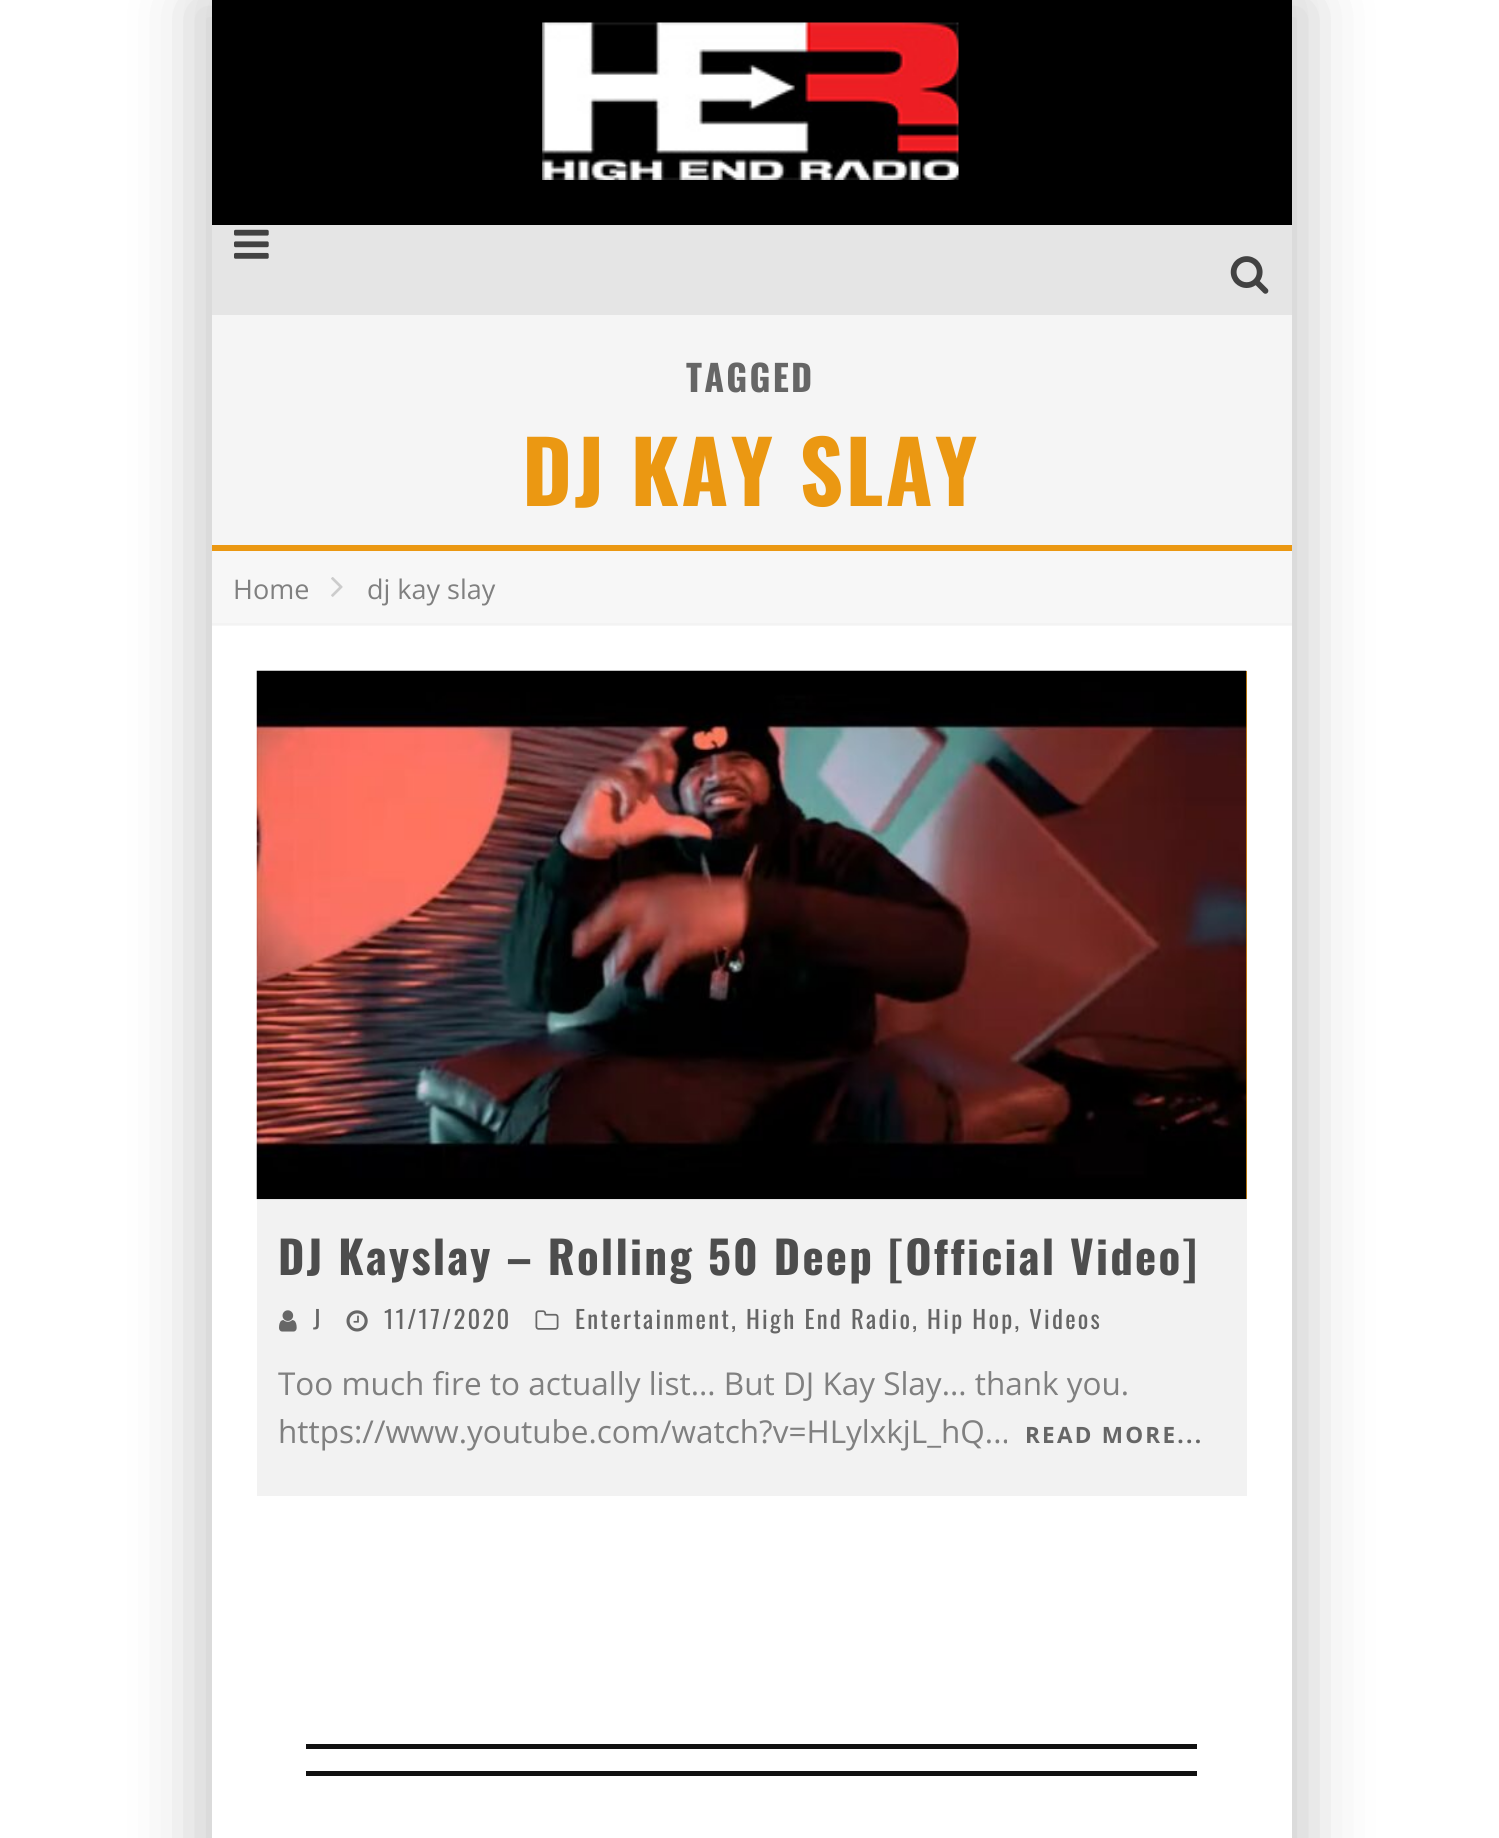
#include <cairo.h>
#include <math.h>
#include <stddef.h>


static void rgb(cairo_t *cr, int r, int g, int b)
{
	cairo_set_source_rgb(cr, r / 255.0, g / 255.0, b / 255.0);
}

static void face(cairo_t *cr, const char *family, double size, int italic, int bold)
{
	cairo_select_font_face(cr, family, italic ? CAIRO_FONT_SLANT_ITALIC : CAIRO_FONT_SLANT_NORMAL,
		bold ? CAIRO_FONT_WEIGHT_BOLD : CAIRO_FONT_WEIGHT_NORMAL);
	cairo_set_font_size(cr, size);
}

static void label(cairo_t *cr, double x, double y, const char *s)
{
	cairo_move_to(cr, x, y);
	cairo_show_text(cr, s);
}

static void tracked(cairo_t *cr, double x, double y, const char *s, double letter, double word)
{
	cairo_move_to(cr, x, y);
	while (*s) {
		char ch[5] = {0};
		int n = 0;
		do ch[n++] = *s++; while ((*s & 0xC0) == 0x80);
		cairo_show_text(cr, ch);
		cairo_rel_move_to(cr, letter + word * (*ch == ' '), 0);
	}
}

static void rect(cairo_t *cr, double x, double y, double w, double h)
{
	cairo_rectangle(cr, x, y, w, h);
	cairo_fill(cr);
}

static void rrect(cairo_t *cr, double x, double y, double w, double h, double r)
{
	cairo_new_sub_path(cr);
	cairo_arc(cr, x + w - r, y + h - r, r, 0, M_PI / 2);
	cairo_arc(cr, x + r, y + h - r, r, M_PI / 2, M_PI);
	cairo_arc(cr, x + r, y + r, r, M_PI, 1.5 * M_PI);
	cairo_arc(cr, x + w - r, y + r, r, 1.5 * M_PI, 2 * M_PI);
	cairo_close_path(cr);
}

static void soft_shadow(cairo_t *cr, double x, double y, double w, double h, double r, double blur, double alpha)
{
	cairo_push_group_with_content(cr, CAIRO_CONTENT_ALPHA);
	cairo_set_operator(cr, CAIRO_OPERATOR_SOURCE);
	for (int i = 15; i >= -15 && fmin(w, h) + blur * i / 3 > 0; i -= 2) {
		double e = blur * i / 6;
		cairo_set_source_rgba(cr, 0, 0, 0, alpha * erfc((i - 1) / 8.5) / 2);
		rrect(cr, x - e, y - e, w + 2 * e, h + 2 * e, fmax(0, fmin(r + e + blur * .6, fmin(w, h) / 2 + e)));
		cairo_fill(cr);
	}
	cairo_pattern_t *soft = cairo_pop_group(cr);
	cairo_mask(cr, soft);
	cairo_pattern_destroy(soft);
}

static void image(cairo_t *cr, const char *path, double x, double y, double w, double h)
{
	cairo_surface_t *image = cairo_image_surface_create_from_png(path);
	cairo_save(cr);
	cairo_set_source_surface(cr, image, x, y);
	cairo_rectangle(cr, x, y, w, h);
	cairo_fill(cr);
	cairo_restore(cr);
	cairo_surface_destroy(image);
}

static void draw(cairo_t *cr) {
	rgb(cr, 255, 255, 255);
	cairo_paint(cr);
	rgb(cr, 0, 0, 0);
	soft_shadow(cr, 189, 0, 1080, 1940, 0, 34, 0.15);
	soft_shadow(cr, 234, 0, 1080, 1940, 0, 34, 0.15);
	rgb(cr, 0, 0, 0);
	rect(cr, 212, 0, 1080, 225);
	image(cr, "image0.png", 542, 22, 417, 158);
	rgb(cr, 229, 229, 229);
	rect(cr, 212, 225, 1080, 90);
	image(cr, "image1.png", 234, 229, 35, 30);
	image(cr, "image2.png", 1230, 256, 39, 38);
	rgb(cr, 255, 255, 255);
	rect(cr, 212, 626, 1080, 1212);
	rgb(cr, 245, 245, 245);
	rect(cr, 212, 315, 1080, 230);
	rgb(cr, 235, 152, 18);
	rect(cr, 212, 545, 1080, 6);
	face(cr, "Oswald", 36, 0, 1);
	rgb(cr, 102, 102, 102);
	tracked(cr, 686, 392, "TAGGED", 2.25, 0);
	face(cr, "Oswald", 85.5, 0, 1);
	rgb(cr, 235, 152, 18);
	tracked(cr, 522, 506, "DJ KAY SLAY", 2.25, 0);
	rgb(cr, 247, 247, 247);
	rect(cr, 212, 551, 1080, 75);
	rgb(cr, 243, 243, 243);
	rect(cr, 212, 623, 1080, 2);
	face(cr, "Open Sans", 27, 0, 0);
	rgb(cr, 128, 128, 128);
	label(cr, 233, 599, "Home");
	image(cr, "image3.png", 331, 577, 12, 20);
	label(cr, 367, 599, "dj kay slay");
	rgb(cr, 242, 242, 242);
	rect(cr, 257, 1199, 990, 297);
	rgb(cr, 235, 152, 18);
	rect(cr, 1246, 671, 1, 528);
	image(cr, "image4.png", 256, 670, 991, 530);
	face(cr, "Oswald", 45, 0, 1);
	rgb(cr, 77, 77, 77);
	tracked(cr, 278, 1275, "DJ Kayslay – Rolling 50 Deep [Official Video]", 2.25, 0);
	image(cr, "image5.png", 279, 1310, 18, 22);
	face(cr, "Oswald", 24.75, 0, 0);
	rgb(cr, 102, 102, 102);
	tracked(cr, 313, 1329, "J", 2.25, 0);
	image(cr, "image6.png", 346, 1310, 22, 22);
	tracked(cr, 384, 1329, "11/17/2020", 2.25, 0);
	image(cr, "image7.png", 535, 1310, 24, 20);
	tracked(cr, 575, 1329, "Entertainment, High End Radio, Hip Hop, Videos", 2.25, 0);
	face(cr, "Open Sans", 31.5, 0, 0);
	rgb(cr, 128, 128, 128);
	label(cr, 278, 1395, "Too much fire to actually list... But DJ Kay Slay... thank you.");
	label(cr, 278, 1443, "https://www.youtube.com/watch?v=HLylxkjL_hQ...");
	face(cr, "Open Sans", 22.5, 0, 1);
	rgb(cr, 102, 102, 102);
	tracked(cr, 1025, 1443, "READ MORE...", 2.25, 0);
	rgb(cr, 17, 17, 17);
	rect(cr, 306, 1744, 891, 5);
	rect(cr, 306, 1771, 891, 5);
}

int main(void) {
	cairo_surface_t *surface = cairo_image_surface_create(CAIRO_FORMAT_RGB24, 1499, 1838);
	cairo_t *cr = cairo_create(surface);
	cairo_font_options_t *options = cairo_font_options_create();
	cairo_font_options_set_hint_metrics(options, CAIRO_HINT_METRICS_OFF);
	cairo_font_options_set_hint_style(options, CAIRO_HINT_STYLE_NONE);
	cairo_set_font_options(cr, options);
	cairo_set_miter_limit(cr, 4);
	draw(cr);
	cairo_surface_write_to_png(surface, "render.png");
	cairo_font_options_destroy(options);
	cairo_destroy(cr);
	cairo_surface_destroy(surface);
	return 0;
}
